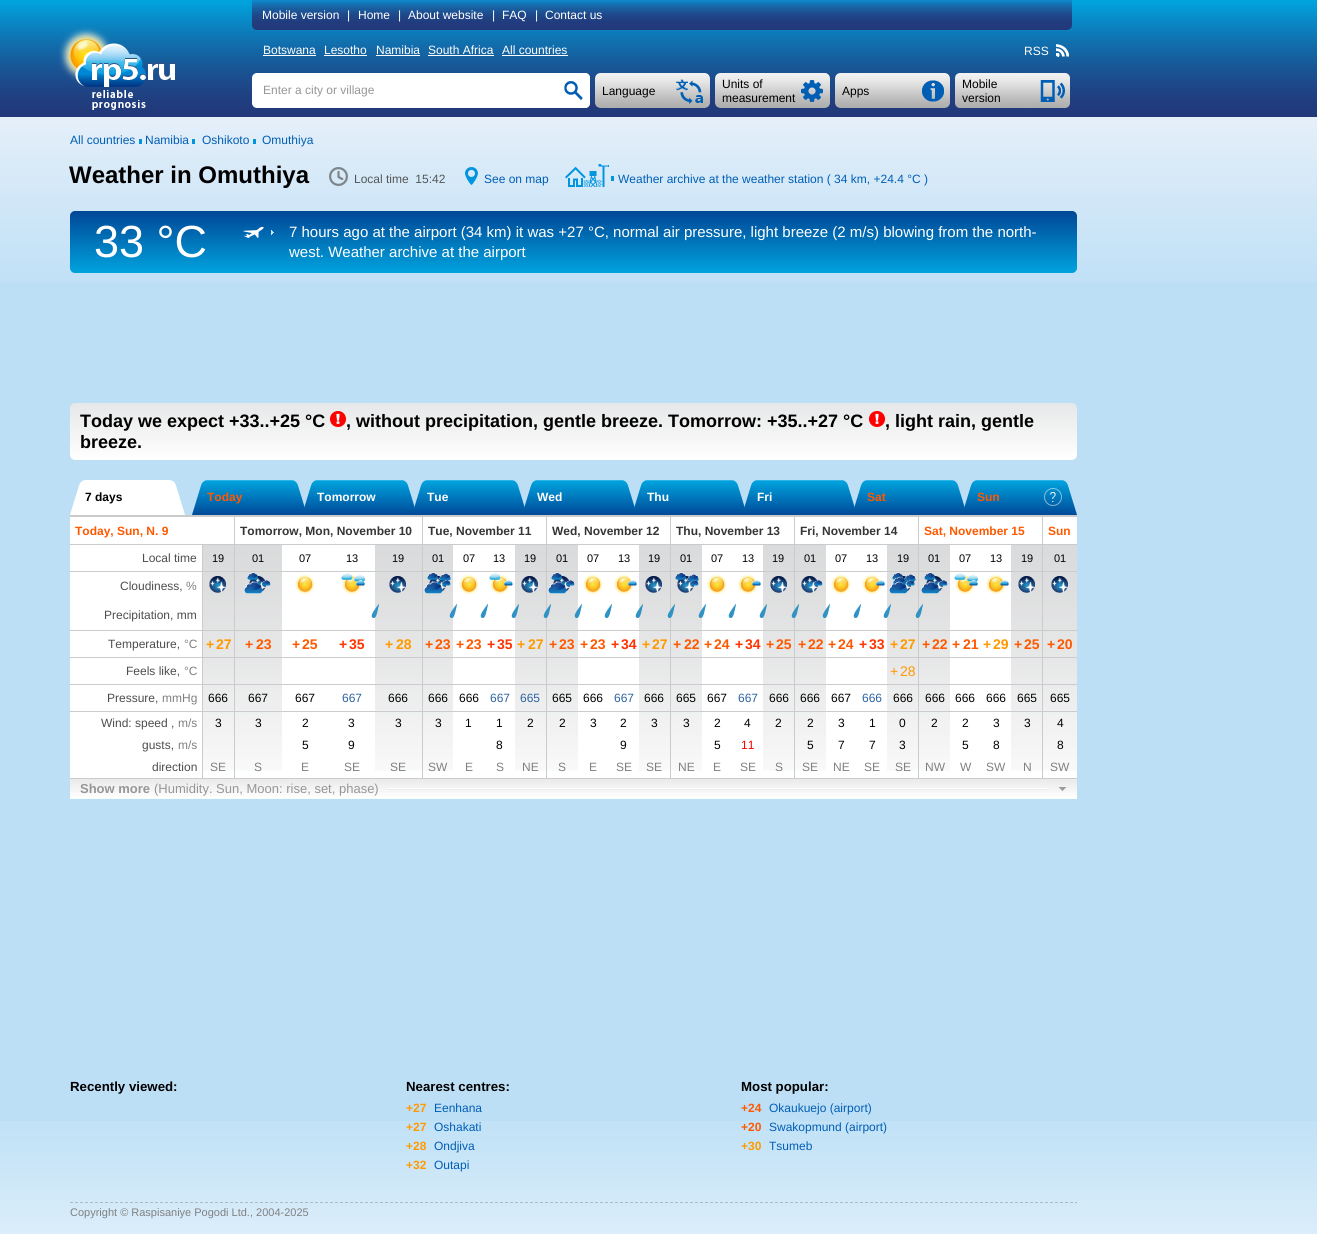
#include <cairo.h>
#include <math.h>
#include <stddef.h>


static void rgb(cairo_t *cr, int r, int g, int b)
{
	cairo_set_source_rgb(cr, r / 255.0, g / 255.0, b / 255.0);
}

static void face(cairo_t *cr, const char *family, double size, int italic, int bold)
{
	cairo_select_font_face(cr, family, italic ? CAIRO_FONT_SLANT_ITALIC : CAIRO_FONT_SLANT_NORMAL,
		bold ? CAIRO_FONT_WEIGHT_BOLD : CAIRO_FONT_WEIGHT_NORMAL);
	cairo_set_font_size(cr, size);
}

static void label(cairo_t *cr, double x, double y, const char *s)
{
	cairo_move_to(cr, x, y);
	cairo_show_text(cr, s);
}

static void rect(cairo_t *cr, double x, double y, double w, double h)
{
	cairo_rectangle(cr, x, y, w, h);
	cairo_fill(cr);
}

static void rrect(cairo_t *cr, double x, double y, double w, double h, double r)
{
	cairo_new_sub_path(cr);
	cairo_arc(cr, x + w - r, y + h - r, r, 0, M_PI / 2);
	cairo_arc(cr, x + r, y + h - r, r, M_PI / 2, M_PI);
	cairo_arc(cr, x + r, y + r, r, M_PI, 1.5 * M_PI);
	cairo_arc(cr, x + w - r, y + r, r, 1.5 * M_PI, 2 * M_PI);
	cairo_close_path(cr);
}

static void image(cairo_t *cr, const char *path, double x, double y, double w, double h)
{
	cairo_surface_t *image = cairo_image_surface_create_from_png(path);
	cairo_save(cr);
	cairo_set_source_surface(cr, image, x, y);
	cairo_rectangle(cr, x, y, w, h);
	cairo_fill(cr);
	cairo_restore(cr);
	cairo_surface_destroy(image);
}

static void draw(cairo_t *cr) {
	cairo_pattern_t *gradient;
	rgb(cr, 189, 223, 246);
	cairo_paint(cr);
	image(cr, "image0.png", 0, 123, 1317, 159);
	image(cr, "image1.png", 0, 0, 1317, 123);
	image(cr, "image2.png", 252, 0, 820, 30);
	face(cr, "Liberation Sans", 12, 0, 0);
	rgb(cr, 255, 255, 255);
	label(cr, 262, 19, "Mobile version");
	label(cr, 347, 19, "|");
	label(cr, 358, 19, "Home");
	label(cr, 398, 19, "|");
	label(cr, 408, 19, "About website");
	label(cr, 492, 19, "|");
	label(cr, 502, 19, "FAQ");
	label(cr, 535, 19, "|");
	label(cr, 545, 19, "Contact us");
	image(cr, "image3.png", 59, 27, 116, 83);
	label(cr, 263, 54, "Botswana");
	rect(cr, 263, 55, 53, 1);
	label(cr, 324, 54, "Lesotho");
	rect(cr, 324, 55, 43, 1);
	label(cr, 376, 54, "Namibia");
	rect(cr, 376, 55, 44, 1);
	label(cr, 428, 54, "South Africa");
	rect(cr, 428, 55, 66, 1);
	label(cr, 502, 54, "All countries");
	rect(cr, 502, 55, 66, 1);
	label(cr, 1024, 55, "RSS");
	image(cr, "image4.png", 1056, 44, 13, 13);
	rrect(cr, 252, 73, 338, 35, 5);
	cairo_fill(cr);
	rgb(cr, 150, 150, 150);
	label(cr, 263, 94, "Enter a city or village");
	image(cr, "image5.png", 564, 73, 26, 35);
	image(cr, "image6.png", 595, 73, 115, 35);
	rgb(cr, 0, 0, 0);
	label(cr, 602, 95, "Language");
	image(cr, "image7.png", 715, 73, 115, 35);
	label(cr, 722, 88, "Units of");
	label(cr, 722, 102, "measurement");
	image(cr, "image8.png", 835, 73, 115, 35);
	label(cr, 842, 95, "Apps");
	image(cr, "image9.png", 955, 73, 115, 35);
	label(cr, 962, 88, "Mobile");
	label(cr, 962, 102, "version");
	rgb(cr, 0, 94, 181);
	label(cr, 70, 144, "All countries");
	rgb(cr, 0, 150, 222);
	rect(cr, 139, 139, 3, 5);
	rgb(cr, 0, 94, 181);
	label(cr, 145, 144, "Namibia");
	rgb(cr, 0, 150, 222);
	rect(cr, 192, 139, 3, 5);
	rgb(cr, 0, 94, 181);
	label(cr, 202, 144, "Oshikoto");
	rgb(cr, 0, 150, 222);
	rect(cr, 253, 139, 3, 5);
	rgb(cr, 0, 94, 181);
	label(cr, 262, 144, "Omuthiya");
	face(cr, "Liberation Sans", 24, 0, 1);
	rgb(cr, 0, 0, 0);
	label(cr, 69, 183, "Weather in Omuthiya");
	image(cr, "image10.png", 329, 167, 19, 19);
	face(cr, "Liberation Sans", 12, 0, 0);
	rgb(cr, 85, 85, 85);
	label(cr, 354, 183, "Local time  15:42");
	image(cr, "image11.png", 465, 167, 13, 18);
	rgb(cr, 0, 94, 181);
	label(cr, 484, 183, "See on map");
	image(cr, "image12.png", 565, 164, 44, 23);
	rgb(cr, 0, 150, 222);
	rect(cr, 611, 176, 3, 5);
	rgb(cr, 0, 94, 181);
	label(cr, 618, 183, "Weather archive at the weather station ( 34 km, +24.4 °C )");
	gradient = cairo_pattern_create_linear(574, 211, 574, 273);
	cairo_pattern_add_color_stop_rgba(gradient, 0, 0, 0.278, 0.588, 1);
	cairo_pattern_add_color_stop_rgba(gradient, 1, 0, 0.639, 0.871, 1);
	cairo_set_source(cr, gradient);
	cairo_pattern_destroy(gradient);
	rrect(cr, 70, 211, 1007, 62, 5);
	cairo_fill(cr);
	face(cr, "Liberation Sans", 45, 0, 0);
	rgb(cr, 255, 255, 255);
	label(cr, 94, 257, "33 °C");
	image(cr, "image13.png", 243, 226, 31, 12);
	face(cr, "Liberation Sans", 15, 0, 0);
	label(cr, 289, 237, "7 hours ago at the airport (34 km) it was +27 °C, normal air pressure, light breeze (2 m/s) blowing from the north-");
	label(cr, 289, 257, "west. Weather archive at the airport");
	image(cr, "image14.png", 70, 403, 1007, 57);
	face(cr, "Liberation Sans", 18, 0, 1);
	rgb(cr, 0, 0, 0);
	label(cr, 80, 427, "Today we expect +33..+25 °C");
	image(cr, "image15.png", 869, 411, 16, 16);
	label(cr, 885, 427, ", light rain, gentle");
	label(cr, 80, 448, "breeze.");
	image(cr, "image15.png", 330, 411, 16, 16);
	label(cr, 346, 427, ", without precipitation, gentle breeze. Tomorrow: +35..+27 °C");
	image(cr, "image16.png", 70, 480, 15, 35);
	rgb(cr, 255, 255, 255);
	rect(cr, 85, 480, 85, 35);
	face(cr, "Liberation Sans", 12, 0, 1);
	rgb(cr, 0, 0, 0);
	label(cr, 85, 501, "7 days");
	image(cr, "image17.png", 170, 480, 15, 35);
	image(cr, "image18.png", 192, 480, 15, 35);
	image(cr, "image19.png", 207, 480, 85, 35);
	rgb(cr, 255, 89, 0);
	label(cr, 207, 501, "Today");
	image(cr, "image20.png", 292, 480, 13, 35);
	image(cr, "image21.png", 304, 480, 13, 35);
	image(cr, "image19.png", 317, 480, 85, 35);
	rgb(cr, 255, 255, 255);
	label(cr, 317, 501, "Tomorrow");
	image(cr, "image20.png", 402, 480, 13, 35);
	image(cr, "image21.png", 414, 480, 13, 35);
	image(cr, "image19.png", 427, 480, 85, 35);
	label(cr, 427, 501, "Tue");
	image(cr, "image20.png", 512, 480, 13, 35);
	image(cr, "image21.png", 524, 480, 13, 35);
	image(cr, "image19.png", 537, 480, 85, 35);
	label(cr, 537, 501, "Wed");
	image(cr, "image20.png", 622, 480, 13, 35);
	image(cr, "image21.png", 634, 480, 13, 35);
	image(cr, "image19.png", 647, 480, 85, 35);
	label(cr, 647, 501, "Thu");
	image(cr, "image20.png", 732, 480, 13, 35);
	image(cr, "image21.png", 744, 480, 13, 35);
	image(cr, "image19.png", 757, 480, 85, 35);
	label(cr, 757, 501, "Fri");
	image(cr, "image20.png", 842, 480, 13, 35);
	image(cr, "image21.png", 854, 480, 13, 35);
	image(cr, "image19.png", 867, 480, 85, 35);
	rgb(cr, 255, 89, 0);
	label(cr, 867, 501, "Sat");
	image(cr, "image20.png", 952, 480, 13, 35);
	image(cr, "image21.png", 964, 480, 13, 35);
	image(cr, "image19.png", 977, 480, 85, 35);
	label(cr, 977, 501, "Sun");
	image(cr, "image22.png", 1044, 488, 18, 18);
	image(cr, "image23.png", 1062, 480, 15, 35);
	rgb(cr, 255, 255, 255);
	rect(cr, 203, 771, 874, 7);
	image(cr, "image24.png", 203, 545, 874, 226);
	rect(cr, 70, 517, 1007, 27);
	rgb(cr, 203, 203, 203);
	rect(cr, 70, 515, 1007, 2);
	rect(cr, 70, 544, 1007, 1);
	rgb(cr, 255, 89, 0);
	label(cr, 75, 535, "Today, Sun, N. 9");
	rgb(cr, 203, 203, 203);
	rect(cr, 234, 515, 1, 30);
	rgb(cr, 53, 53, 53);
	label(cr, 240, 535, "Tomorrow, Mon, November 10");
	rgb(cr, 203, 203, 203);
	rect(cr, 422, 515, 1, 30);
	rgb(cr, 53, 53, 53);
	label(cr, 428, 535, "Tue, November 11");
	rgb(cr, 203, 203, 203);
	rect(cr, 546, 515, 1, 30);
	rgb(cr, 53, 53, 53);
	label(cr, 552, 535, "Wed, November 12");
	rgb(cr, 203, 203, 203);
	rect(cr, 670, 515, 1, 30);
	rgb(cr, 53, 53, 53);
	label(cr, 676, 535, "Thu, November 13");
	rgb(cr, 203, 203, 203);
	rect(cr, 794, 515, 1, 30);
	rgb(cr, 53, 53, 53);
	label(cr, 800, 535, "Fri, November 14");
	rgb(cr, 203, 203, 203);
	rect(cr, 918, 515, 1, 30);
	rgb(cr, 255, 89, 0);
	label(cr, 924, 535, "Sat, November 15");
	rgb(cr, 203, 203, 203);
	rect(cr, 1042, 515, 1, 30);
	rgb(cr, 255, 89, 0);
	label(cr, 1048, 535, "Sun");
	rgb(cr, 255, 255, 255);
	rect(cr, 70, 545, 132, 26);
	rgb(cr, 203, 203, 203);
	rect(cr, 70, 571, 1007, 1);
	face(cr, "Liberation Sans", 12, 0, 0);
	rgb(cr, 77, 77, 77);
	label(cr, 142, 562, "Local time");
	rgb(cr, 203, 203, 203);
	rect(cr, 202, 545, 1, 85);
	face(cr, "Liberation Sans", 11, 0, 0);
	rgb(cr, 0, 0, 0);
	label(cr, 212, 562, "19");
	rgb(cr, 203, 203, 203);
	rect(cr, 234, 545, 1, 85);
	rgb(cr, 0, 0, 0);
	label(cr, 252, 562, "01");
	rgb(cr, 255, 255, 255);
	rect(cr, 282, 545, 93, 26);
	rgb(cr, 0, 0, 0);
	label(cr, 299, 562, "07");
	label(cr, 346, 562, "13");
	label(cr, 392, 562, "19");
	rgb(cr, 203, 203, 203);
	rect(cr, 422, 545, 1, 85);
	rgb(cr, 0, 0, 0);
	label(cr, 432, 562, "01");
	rgb(cr, 255, 255, 255);
	rect(cr, 453, 545, 62, 26);
	rgb(cr, 0, 0, 0);
	label(cr, 463, 562, "07");
	label(cr, 493, 562, "13");
	label(cr, 524, 562, "19");
	rgb(cr, 203, 203, 203);
	rect(cr, 546, 545, 1, 85);
	rgb(cr, 0, 0, 0);
	label(cr, 556, 562, "01");
	rgb(cr, 255, 255, 255);
	rect(cr, 578, 545, 61, 26);
	rgb(cr, 0, 0, 0);
	label(cr, 587, 562, "07");
	label(cr, 618, 562, "13");
	label(cr, 648, 562, "19");
	rgb(cr, 203, 203, 203);
	rect(cr, 670, 545, 1, 85);
	rgb(cr, 0, 0, 0);
	label(cr, 680, 562, "01");
	rgb(cr, 255, 255, 255);
	rect(cr, 702, 545, 61, 26);
	rgb(cr, 0, 0, 0);
	label(cr, 711, 562, "07");
	label(cr, 742, 562, "13");
	label(cr, 772, 562, "19");
	rgb(cr, 203, 203, 203);
	rect(cr, 794, 545, 1, 85);
	rgb(cr, 0, 0, 0);
	label(cr, 804, 562, "01");
	rgb(cr, 255, 255, 255);
	rect(cr, 826, 545, 61, 26);
	rgb(cr, 0, 0, 0);
	label(cr, 835, 562, "07");
	label(cr, 866, 562, "13");
	label(cr, 897, 562, "19");
	rgb(cr, 203, 203, 203);
	rect(cr, 918, 545, 1, 85);
	rgb(cr, 0, 0, 0);
	label(cr, 928, 562, "01");
	rgb(cr, 255, 255, 255);
	rect(cr, 950, 545, 61, 26);
	rgb(cr, 0, 0, 0);
	label(cr, 959, 562, "07");
	label(cr, 990, 562, "13");
	label(cr, 1021, 562, "19");
	rgb(cr, 203, 203, 203);
	rect(cr, 1042, 545, 1, 85);
	rgb(cr, 0, 0, 0);
	label(cr, 1054, 562, "01");
	image(cr, "image25.png", 244, 572, 27, 22);
	rgb(cr, 255, 255, 255);
	rect(cr, 282, 572, 93, 28);
	image(cr, "image26.png", 294, 574, 21, 21);
	image(cr, "image27.png", 424, 572, 27, 22);
	rect(cr, 453, 572, 62, 28);
	image(cr, "image26.png", 458, 574, 21, 21);
	image(cr, "image25.png", 548, 572, 27, 22);
	rect(cr, 578, 572, 61, 28);
	image(cr, "image26.png", 582, 574, 21, 21);
	image(cr, "image28.png", 675, 572, 24, 21);
	rect(cr, 702, 572, 61, 28);
	image(cr, "image26.png", 706, 574, 21, 21);
	rect(cr, 826, 572, 61, 28);
	image(cr, "image26.png", 830, 574, 21, 21);
	image(cr, "image29.png", 889, 572, 27, 22);
	image(cr, "image25.png", 921, 572, 27, 22);
	rect(cr, 950, 572, 61, 28);
	image(cr, "image30.png", 954, 573, 24, 22);
	rect(cr, 70, 572, 132, 58);
	face(cr, "Liberation Sans", 12, 0, 0);
	rgb(cr, 77, 77, 77);
	label(cr, 120, 590, "Cloudiness,");
	rgb(cr, 128, 128, 128);
	label(cr, 186, 590, "%");
	image(cr, "image31.png", 209, 576, 17, 17);
	image(cr, "image30.png", 341, 573, 24, 22);
	image(cr, "image31.png", 389, 576, 17, 17);
	image(cr, "image32.png", 489, 573, 24, 22);
	image(cr, "image31.png", 521, 576, 17, 17);
	image(cr, "image33.png", 613, 574, 24, 21);
	image(cr, "image31.png", 645, 576, 17, 17);
	image(cr, "image33.png", 737, 574, 24, 21);
	image(cr, "image31.png", 770, 576, 17, 17);
	image(cr, "image34.png", 801, 576, 22, 17);
	image(cr, "image33.png", 861, 574, 24, 21);
	image(cr, "image33.png", 985, 574, 24, 21);
	image(cr, "image31.png", 1018, 576, 17, 17);
	image(cr, "image31.png", 1051, 576, 17, 17);
	rgb(cr, 255, 255, 255);
	rect(cr, 282, 600, 93, 30);
	rect(cr, 453, 600, 62, 30);
	image(cr, "image35.png", 449, 604, 8, 14);
	rect(cr, 578, 600, 61, 30);
	image(cr, "image35.png", 574, 604, 8, 14);
	rect(cr, 702, 600, 61, 30);
	image(cr, "image35.png", 698, 604, 8, 14);
	rect(cr, 826, 600, 61, 30);
	image(cr, "image35.png", 822, 604, 8, 14);
	rect(cr, 950, 600, 61, 30);
	rgb(cr, 77, 77, 77);
	label(cr, 104, 619, "Precipitation, mm");
	image(cr, "image36.png", 371, 604, 8, 14);
	image(cr, "image37.png", 480, 604, 8, 14);
	image(cr, "image36.png", 511, 604, 8, 14);
	image(cr, "image38.png", 543, 604, 8, 14);
	image(cr, "image37.png", 604, 604, 8, 14);
	image(cr, "image36.png", 635, 604, 8, 14);
	image(cr, "image38.png", 667, 604, 8, 14);
	image(cr, "image37.png", 728, 604, 8, 14);
	image(cr, "image36.png", 759, 604, 8, 14);
	image(cr, "image38.png", 791, 604, 8, 14);
	image(cr, "image37.png", 853, 604, 8, 14);
	image(cr, "image36.png", 883, 604, 8, 14);
	image(cr, "image38.png", 915, 604, 8, 14);
	rgb(cr, 255, 255, 255);
	rect(cr, 70, 631, 132, 26);
	rgb(cr, 203, 203, 203);
	rect(cr, 70, 630, 1007, 1);
	rect(cr, 70, 657, 1007, 1);
	rgb(cr, 77, 77, 77);
	label(cr, 108, 648, "Temperature,");
	rgb(cr, 128, 128, 128);
	label(cr, 184, 648, "°C");
	rgb(cr, 203, 203, 203);
	rect(cr, 202, 630, 1, 28);
	face(cr, "Liberation Sans", 14, 0, 1);
	rgb(cr, 255, 153, 0);
	label(cr, 206, 649, "+");
	label(cr, 216, 649, "27");
	rgb(cr, 203, 203, 203);
	rect(cr, 234, 630, 1, 28);
	rgb(cr, 255, 89, 0);
	label(cr, 245, 649, "+");
	label(cr, 256, 649, "23");
	rgb(cr, 255, 255, 255);
	rect(cr, 282, 631, 93, 26);
	rgb(cr, 255, 89, 0);
	label(cr, 292, 649, "+");
	label(cr, 302, 649, "25");
	rgb(cr, 255, 51, 0);
	label(cr, 339, 649, "+");
	label(cr, 349, 649, "35");
	rgb(cr, 255, 153, 0);
	label(cr, 385, 649, "+");
	label(cr, 396, 649, "28");
	rgb(cr, 203, 203, 203);
	rect(cr, 422, 630, 1, 28);
	rgb(cr, 255, 89, 0);
	label(cr, 425, 649, "+");
	label(cr, 435, 649, "23");
	rgb(cr, 255, 255, 255);
	rect(cr, 453, 631, 62, 26);
	rgb(cr, 255, 89, 0);
	label(cr, 456, 649, "+");
	label(cr, 466, 649, "23");
	rgb(cr, 255, 51, 0);
	label(cr, 487, 649, "+");
	label(cr, 497, 649, "35");
	rgb(cr, 255, 153, 0);
	label(cr, 517, 649, "+");
	label(cr, 528, 649, "27");
	rgb(cr, 203, 203, 203);
	rect(cr, 546, 630, 1, 28);
	rgb(cr, 255, 89, 0);
	label(cr, 549, 649, "+");
	label(cr, 559, 649, "23");
	rgb(cr, 255, 255, 255);
	rect(cr, 578, 631, 61, 26);
	rgb(cr, 255, 89, 0);
	label(cr, 580, 649, "+");
	label(cr, 590, 649, "23");
	rgb(cr, 255, 51, 0);
	label(cr, 611, 649, "+");
	label(cr, 621, 649, "34");
	rgb(cr, 255, 153, 0);
	label(cr, 642, 649, "+");
	label(cr, 652, 649, "27");
	rgb(cr, 203, 203, 203);
	rect(cr, 670, 630, 1, 28);
	rgb(cr, 255, 89, 0);
	label(cr, 673, 649, "+");
	label(cr, 684, 649, "22");
	rgb(cr, 255, 255, 255);
	rect(cr, 702, 631, 61, 26);
	rgb(cr, 255, 89, 0);
	label(cr, 704, 649, "+");
	label(cr, 714, 649, "24");
	rgb(cr, 255, 51, 0);
	label(cr, 735, 649, "+");
	label(cr, 745, 649, "34");
	rgb(cr, 255, 89, 0);
	label(cr, 766, 649, "+");
	label(cr, 776, 649, "25");
	rgb(cr, 203, 203, 203);
	rect(cr, 794, 630, 1, 28);
	rgb(cr, 255, 89, 0);
	label(cr, 798, 649, "+");
	label(cr, 808, 649, "22");
	rgb(cr, 255, 255, 255);
	rect(cr, 826, 631, 61, 26);
	rgb(cr, 255, 89, 0);
	label(cr, 828, 649, "+");
	label(cr, 838, 649, "24");
	rgb(cr, 255, 51, 0);
	label(cr, 859, 649, "+");
	label(cr, 869, 649, "33");
	rgb(cr, 255, 153, 0);
	label(cr, 890, 649, "+");
	label(cr, 900, 649, "27");
	rgb(cr, 203, 203, 203);
	rect(cr, 918, 630, 1, 28);
	rgb(cr, 255, 89, 0);
	label(cr, 922, 649, "+");
	label(cr, 932, 649, "22");
	rgb(cr, 255, 255, 255);
	rect(cr, 950, 631, 61, 26);
	rgb(cr, 255, 89, 0);
	label(cr, 952, 649, "+");
	label(cr, 963, 649, "21");
	rgb(cr, 255, 153, 0);
	label(cr, 983, 649, "+");
	label(cr, 993, 649, "29");
	rgb(cr, 255, 89, 0);
	label(cr, 1014, 649, "+");
	label(cr, 1024, 649, "25");
	rgb(cr, 203, 203, 203);
	rect(cr, 1042, 630, 1, 28);
	rgb(cr, 255, 89, 0);
	label(cr, 1047, 649, "+");
	label(cr, 1057, 649, "20");
	rgb(cr, 255, 255, 255);
	rect(cr, 70, 658, 132, 26);
	rgb(cr, 203, 203, 203);
	rect(cr, 70, 684, 1007, 1);
	face(cr, "Liberation Sans", 12, 0, 0);
	rgb(cr, 77, 77, 77);
	label(cr, 126, 675, "Feels like,");
	rgb(cr, 128, 128, 128);
	label(cr, 184, 675, "°C");
	rgb(cr, 203, 203, 203);
	rect(cr, 202, 658, 1, 27);
	rect(cr, 234, 658, 1, 27);
	rgb(cr, 255, 255, 255);
	rect(cr, 282, 658, 93, 26);
	rgb(cr, 203, 203, 203);
	rect(cr, 422, 658, 1, 27);
	rgb(cr, 255, 255, 255);
	rect(cr, 453, 658, 62, 26);
	rgb(cr, 203, 203, 203);
	rect(cr, 546, 658, 1, 27);
	rgb(cr, 255, 255, 255);
	rect(cr, 578, 658, 61, 26);
	rgb(cr, 203, 203, 203);
	rect(cr, 670, 658, 1, 27);
	rgb(cr, 255, 255, 255);
	rect(cr, 702, 658, 61, 26);
	rgb(cr, 203, 203, 203);
	rect(cr, 794, 658, 1, 27);
	rgb(cr, 255, 255, 255);
	rect(cr, 826, 658, 61, 26);
	face(cr, "Liberation Sans", 14, 0, 0);
	rgb(cr, 255, 153, 0);
	label(cr, 890, 676, "+");
	label(cr, 900, 676, "28");
	rgb(cr, 203, 203, 203);
	rect(cr, 918, 658, 1, 27);
	rgb(cr, 255, 255, 255);
	rect(cr, 950, 658, 61, 26);
	rgb(cr, 203, 203, 203);
	rect(cr, 1042, 658, 1, 27);
	rgb(cr, 255, 255, 255);
	rect(cr, 70, 685, 132, 26);
	rgb(cr, 203, 203, 203);
	rect(cr, 70, 711, 1007, 1);
	face(cr, "Liberation Sans", 12, 0, 0);
	rgb(cr, 77, 77, 77);
	label(cr, 107, 702, "Pressure,");
	rgb(cr, 128, 128, 128);
	label(cr, 162, 702, "mmHg");
	rgb(cr, 203, 203, 203);
	rect(cr, 202, 685, 1, 71);
	rgb(cr, 0, 0, 0);
	label(cr, 208, 702, "666");
	rgb(cr, 203, 203, 203);
	rect(cr, 234, 685, 1, 71);
	rgb(cr, 0, 0, 0);
	label(cr, 248, 702, "667");
	rgb(cr, 255, 255, 255);
	rect(cr, 282, 685, 93, 26);
	rgb(cr, 0, 0, 0);
	label(cr, 295, 702, "667");
	rgb(cr, 43, 99, 160);
	label(cr, 342, 702, "667");
	rgb(cr, 0, 0, 0);
	label(cr, 388, 702, "666");
	rgb(cr, 203, 203, 203);
	rect(cr, 422, 685, 1, 71);
	rgb(cr, 0, 0, 0);
	label(cr, 428, 702, "666");
	rgb(cr, 255, 255, 255);
	rect(cr, 453, 685, 62, 26);
	rgb(cr, 0, 0, 0);
	label(cr, 459, 702, "666");
	rgb(cr, 43, 99, 160);
	label(cr, 490, 702, "667");
	label(cr, 520, 702, "665");
	rgb(cr, 203, 203, 203);
	rect(cr, 546, 685, 1, 71);
	rgb(cr, 0, 0, 0);
	label(cr, 552, 702, "665");
	rgb(cr, 255, 255, 255);
	rect(cr, 578, 685, 61, 26);
	rgb(cr, 0, 0, 0);
	label(cr, 583, 702, "666");
	rgb(cr, 43, 99, 160);
	label(cr, 614, 702, "667");
	rgb(cr, 0, 0, 0);
	label(cr, 644, 702, "666");
	rgb(cr, 203, 203, 203);
	rect(cr, 670, 685, 1, 71);
	rgb(cr, 0, 0, 0);
	label(cr, 676, 702, "665");
	rgb(cr, 255, 255, 255);
	rect(cr, 702, 685, 61, 26);
	rgb(cr, 0, 0, 0);
	label(cr, 707, 702, "667");
	rgb(cr, 43, 99, 160);
	label(cr, 738, 702, "667");
	rgb(cr, 0, 0, 0);
	label(cr, 769, 702, "666");
	rgb(cr, 203, 203, 203);
	rect(cr, 794, 685, 1, 71);
	rgb(cr, 0, 0, 0);
	label(cr, 800, 702, "666");
	rgb(cr, 255, 255, 255);
	rect(cr, 826, 685, 61, 26);
	rgb(cr, 0, 0, 0);
	label(cr, 831, 702, "667");
	rgb(cr, 43, 99, 160);
	label(cr, 862, 702, "666");
	rgb(cr, 0, 0, 0);
	label(cr, 893, 702, "666");
	rgb(cr, 203, 203, 203);
	rect(cr, 918, 685, 1, 71);
	rgb(cr, 0, 0, 0);
	label(cr, 925, 702, "666");
	rgb(cr, 255, 255, 255);
	rect(cr, 950, 685, 61, 26);
	rgb(cr, 0, 0, 0);
	label(cr, 955, 702, "666");
	label(cr, 986, 702, "666");
	label(cr, 1017, 702, "665");
	rgb(cr, 203, 203, 203);
	rect(cr, 1042, 685, 1, 71);
	rgb(cr, 0, 0, 0);
	label(cr, 1050, 702, "665");
	rgb(cr, 255, 255, 255);
	rect(cr, 70, 712, 132, 66);
	rgb(cr, 77, 77, 77);
	label(cr, 101, 727, "Wind: speed ,");
	rgb(cr, 128, 128, 128);
	label(cr, 178, 727, "m/s");
	rgb(cr, 0, 0, 0);
	label(cr, 215, 727, "3");
	label(cr, 255, 727, "3");
	rgb(cr, 255, 255, 255);
	rect(cr, 282, 712, 93, 22);
	rgb(cr, 0, 0, 0);
	label(cr, 302, 727, "2");
	label(cr, 348, 727, "3");
	label(cr, 395, 727, "3");
	label(cr, 435, 727, "3");
	rgb(cr, 255, 255, 255);
	rect(cr, 453, 712, 62, 22);
	rgb(cr, 0, 0, 0);
	label(cr, 465, 727, "1");
	label(cr, 496, 727, "1");
	label(cr, 527, 727, "2");
	label(cr, 559, 727, "2");
	rgb(cr, 255, 255, 255);
	rect(cr, 578, 712, 61, 22);
	rgb(cr, 0, 0, 0);
	label(cr, 590, 727, "3");
	label(cr, 620, 727, "2");
	label(cr, 651, 727, "3");
	label(cr, 683, 727, "3");
	rgb(cr, 255, 255, 255);
	rect(cr, 702, 712, 61, 22);
	rgb(cr, 0, 0, 0);
	label(cr, 714, 727, "2");
	label(cr, 744, 727, "4");
	label(cr, 775, 727, "2");
	label(cr, 807, 727, "2");
	rgb(cr, 255, 255, 255);
	rect(cr, 826, 712, 61, 22);
	rgb(cr, 0, 0, 0);
	label(cr, 838, 727, "3");
	label(cr, 869, 727, "1");
	label(cr, 899, 727, "0");
	label(cr, 931, 727, "2");
	rgb(cr, 255, 255, 255);
	rect(cr, 950, 712, 61, 22);
	rgb(cr, 0, 0, 0);
	label(cr, 962, 727, "2");
	label(cr, 993, 727, "3");
	label(cr, 1024, 727, "3");
	label(cr, 1057, 727, "4");
	rgb(cr, 77, 77, 77);
	label(cr, 142, 749, "gusts,");
	rgb(cr, 128, 128, 128);
	label(cr, 178, 749, "m/s");
	rgb(cr, 255, 255, 255);
	rect(cr, 282, 734, 93, 22);
	rgb(cr, 0, 0, 0);
	label(cr, 302, 749, "5");
	label(cr, 348, 749, "9");
	rgb(cr, 255, 255, 255);
	rect(cr, 453, 734, 62, 22);
	rect(cr, 578, 734, 61, 22);
	rgb(cr, 0, 0, 0);
	label(cr, 496, 749, "8");
	label(cr, 620, 749, "9");
	rgb(cr, 255, 255, 255);
	rect(cr, 702, 734, 61, 22);
	rgb(cr, 0, 0, 0);
	label(cr, 714, 749, "5");
	rgb(cr, 255, 0, 0);
	label(cr, 741, 749, "11");
	rgb(cr, 0, 0, 0);
	label(cr, 807, 749, "5");
	rgb(cr, 255, 255, 255);
	rect(cr, 826, 734, 61, 22);
	rgb(cr, 0, 0, 0);
	label(cr, 838, 749, "7");
	label(cr, 869, 749, "7");
	label(cr, 899, 749, "3");
	rgb(cr, 255, 255, 255);
	rect(cr, 950, 734, 61, 22);
	rgb(cr, 0, 0, 0);
	label(cr, 962, 749, "5");
	label(cr, 993, 749, "8");
	label(cr, 1057, 749, "8");
	rgb(cr, 203, 203, 203);
	rect(cr, 70, 778, 1007, 1);
	rgb(cr, 77, 77, 77);
	label(cr, 152, 771, "direction");
	rgb(cr, 203, 203, 203);
	rect(cr, 202, 756, 1, 23);
	rgb(cr, 128, 128, 128);
	label(cr, 210, 771, "SE");
	rgb(cr, 203, 203, 203);
	rect(cr, 234, 756, 1, 23);
	rgb(cr, 128, 128, 128);
	label(cr, 254, 771, "S");
	rgb(cr, 255, 255, 255);
	rect(cr, 282, 756, 93, 15);
	rgb(cr, 128, 128, 128);
	label(cr, 301, 771, "E");
	label(cr, 344, 771, "SE");
	label(cr, 390, 771, "SE");
	rgb(cr, 203, 203, 203);
	rect(cr, 422, 756, 1, 23);
	rgb(cr, 128, 128, 128);
	label(cr, 428, 771, "SW");
	rgb(cr, 255, 255, 255);
	rect(cr, 453, 756, 62, 15);
	rgb(cr, 128, 128, 128);
	label(cr, 465, 771, "E");
	label(cr, 496, 771, "S");
	label(cr, 522, 771, "NE");
	rgb(cr, 203, 203, 203);
	rect(cr, 546, 756, 1, 23);
	rgb(cr, 128, 128, 128);
	label(cr, 558, 771, "S");
	rgb(cr, 255, 255, 255);
	rect(cr, 578, 756, 61, 15);
	rgb(cr, 128, 128, 128);
	label(cr, 589, 771, "E");
	label(cr, 616, 771, "SE");
	label(cr, 646, 771, "SE");
	rgb(cr, 203, 203, 203);
	rect(cr, 670, 756, 1, 23);
	rgb(cr, 128, 128, 128);
	label(cr, 678, 771, "NE");
	rgb(cr, 255, 255, 255);
	rect(cr, 702, 756, 61, 15);
	rgb(cr, 128, 128, 128);
	label(cr, 713, 771, "E");
	label(cr, 740, 771, "SE");
	label(cr, 775, 771, "S");
	rgb(cr, 203, 203, 203);
	rect(cr, 794, 756, 1, 23);
	rgb(cr, 128, 128, 128);
	label(cr, 802, 771, "SE");
	rgb(cr, 255, 255, 255);
	rect(cr, 826, 756, 61, 15);
	rgb(cr, 128, 128, 128);
	label(cr, 833, 771, "NE");
	label(cr, 864, 771, "SE");
	label(cr, 895, 771, "SE");
	rgb(cr, 203, 203, 203);
	rect(cr, 918, 756, 1, 23);
	rgb(cr, 128, 128, 128);
	label(cr, 925, 771, "NW");
	rgb(cr, 255, 255, 255);
	rect(cr, 950, 756, 61, 15);
	rgb(cr, 128, 128, 128);
	label(cr, 960, 771, "W");
	label(cr, 986, 771, "SW");
	label(cr, 1023, 771, "N");
	rgb(cr, 203, 203, 203);
	rect(cr, 1042, 756, 1, 23);
	rgb(cr, 128, 128, 128);
	label(cr, 1050, 771, "SW");
	image(cr, "image39.png", 70, 779, 1007, 20);
	rgb(cr, 244, 244, 244);
	rect(cr, 70, 788, 318, 2);
	face(cr, "Liberation Sans", 13, 0, 1);
	rgb(cr, 150, 150, 150);
	label(cr, 80, 793, "Show more");
	face(cr, "Liberation Sans", 13, 0, 0);
	label(cr, 154, 793, "(Humidity. Sun, Moon: rise, set, phase)");
	image(cr, "image40.png", 1047, 787, 30, 5);
	image(cr, "image41.png", 0, 1121, 1317, 113);
	face(cr, "Liberation Sans", 13.25, 0, 1);
	rgb(cr, 0, 0, 0);
	label(cr, 70, 1091, "Recently viewed:");
	label(cr, 406, 1091, "Nearest centres:");
	face(cr, "Liberation Sans", 12, 0, 1);
	rgb(cr, 255, 153, 0);
	label(cr, 406, 1112, "+27");
	face(cr, "Liberation Sans", 12, 0, 0);
	rgb(cr, 0, 94, 181);
	label(cr, 434, 1112, "Eenhana");
	face(cr, "Liberation Sans", 12, 0, 1);
	rgb(cr, 255, 153, 0);
	label(cr, 406, 1131, "+27");
	face(cr, "Liberation Sans", 12, 0, 0);
	rgb(cr, 0, 94, 181);
	label(cr, 434, 1131, "Oshakati");
	face(cr, "Liberation Sans", 12, 0, 1);
	rgb(cr, 255, 153, 0);
	label(cr, 406, 1150, "+28");
	face(cr, "Liberation Sans", 12, 0, 0);
	rgb(cr, 0, 94, 181);
	label(cr, 434, 1150, "Ondjiva");
	face(cr, "Liberation Sans", 12, 0, 1);
	rgb(cr, 255, 153, 0);
	label(cr, 406, 1169, "+32");
	face(cr, "Liberation Sans", 12, 0, 0);
	rgb(cr, 0, 94, 181);
	label(cr, 434, 1169, "Outapi");
	face(cr, "Liberation Sans", 13.25, 0, 1);
	rgb(cr, 0, 0, 0);
	label(cr, 741, 1091, "Most popular:");
	face(cr, "Liberation Sans", 12, 0, 1);
	rgb(cr, 255, 89, 0);
	label(cr, 741, 1112, "+24");
	face(cr, "Liberation Sans", 12, 0, 0);
	rgb(cr, 0, 94, 181);
	label(cr, 769, 1112, "Okaukuejo (airport)");
	face(cr, "Liberation Sans", 12, 0, 1);
	rgb(cr, 255, 89, 0);
	label(cr, 741, 1131, "+20");
	face(cr, "Liberation Sans", 12, 0, 0);
	rgb(cr, 0, 94, 181);
	label(cr, 769, 1131, "Swakopmund (airport)");
	face(cr, "Liberation Sans", 12, 0, 1);
	rgb(cr, 255, 153, 0);
	label(cr, 741, 1150, "+30");
	face(cr, "Liberation Sans", 12, 0, 0);
	rgb(cr, 0, 94, 181);
	label(cr, 769, 1150, "Tsumeb");
	cairo_new_path(cr);
	cairo_move_to(cr, 70, 1202.5);
	cairo_line_to(cr, 1077, 1202.5);
	rgb(cr, 174, 185, 192);
	cairo_set_line_width(cr, 1);
	cairo_set_dash(cr, (double[]){3, 2}, 2, 0);
	cairo_stroke(cr);
	face(cr, "Liberation Sans", 11, 0, 0);
	rgb(cr, 128, 128, 128);
	label(cr, 70, 1216, "Copyright © Raspisaniye Pogodi Ltd., 2004-2025");
}

int main(void) {
	cairo_surface_t *surface = cairo_image_surface_create(CAIRO_FORMAT_RGB24, 1317, 1234);
	cairo_t *cr = cairo_create(surface);
	cairo_font_options_t *options = cairo_font_options_create();
	cairo_font_options_set_hint_metrics(options, CAIRO_HINT_METRICS_OFF);
	cairo_font_options_set_hint_style(options, CAIRO_HINT_STYLE_NONE);
	cairo_set_font_options(cr, options);
	cairo_set_miter_limit(cr, 4);
	draw(cr);
	cairo_surface_write_to_png(surface, "render.png");
	cairo_font_options_destroy(options);
	cairo_destroy(cr);
	cairo_surface_destroy(surface);
	return 0;
}
